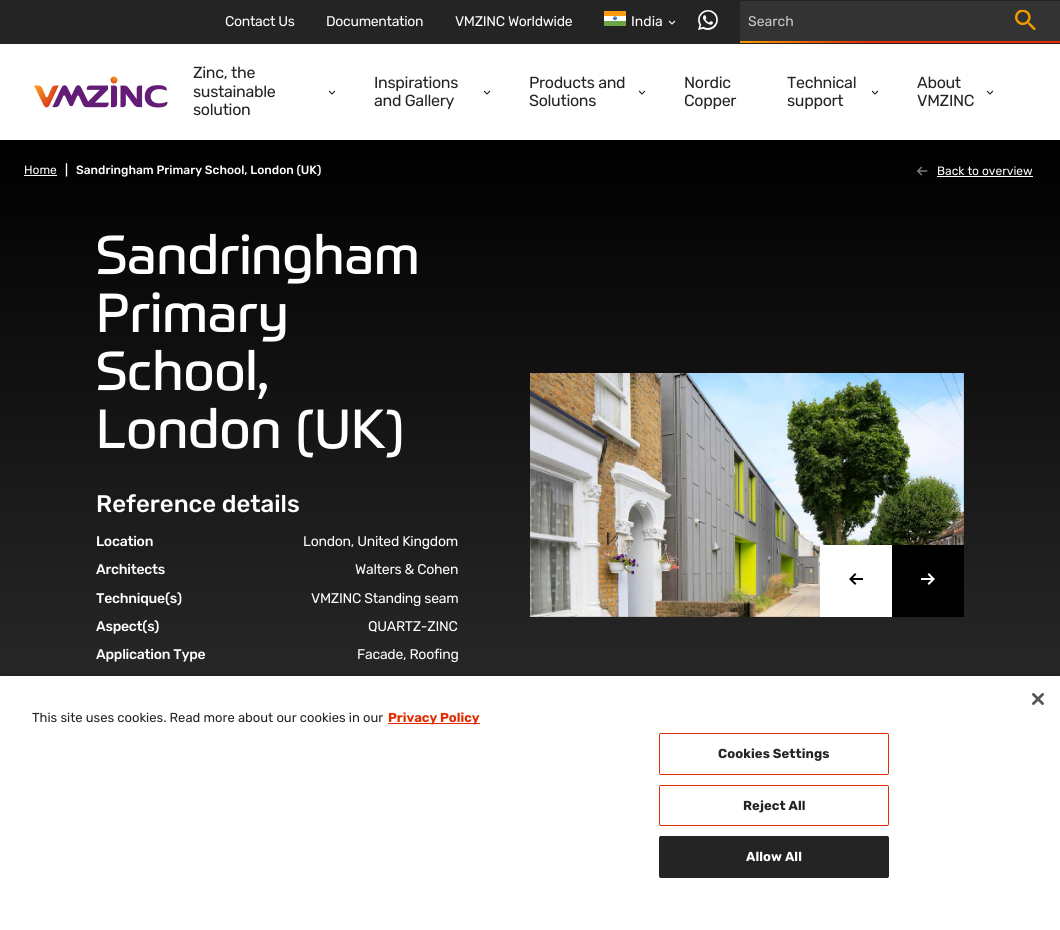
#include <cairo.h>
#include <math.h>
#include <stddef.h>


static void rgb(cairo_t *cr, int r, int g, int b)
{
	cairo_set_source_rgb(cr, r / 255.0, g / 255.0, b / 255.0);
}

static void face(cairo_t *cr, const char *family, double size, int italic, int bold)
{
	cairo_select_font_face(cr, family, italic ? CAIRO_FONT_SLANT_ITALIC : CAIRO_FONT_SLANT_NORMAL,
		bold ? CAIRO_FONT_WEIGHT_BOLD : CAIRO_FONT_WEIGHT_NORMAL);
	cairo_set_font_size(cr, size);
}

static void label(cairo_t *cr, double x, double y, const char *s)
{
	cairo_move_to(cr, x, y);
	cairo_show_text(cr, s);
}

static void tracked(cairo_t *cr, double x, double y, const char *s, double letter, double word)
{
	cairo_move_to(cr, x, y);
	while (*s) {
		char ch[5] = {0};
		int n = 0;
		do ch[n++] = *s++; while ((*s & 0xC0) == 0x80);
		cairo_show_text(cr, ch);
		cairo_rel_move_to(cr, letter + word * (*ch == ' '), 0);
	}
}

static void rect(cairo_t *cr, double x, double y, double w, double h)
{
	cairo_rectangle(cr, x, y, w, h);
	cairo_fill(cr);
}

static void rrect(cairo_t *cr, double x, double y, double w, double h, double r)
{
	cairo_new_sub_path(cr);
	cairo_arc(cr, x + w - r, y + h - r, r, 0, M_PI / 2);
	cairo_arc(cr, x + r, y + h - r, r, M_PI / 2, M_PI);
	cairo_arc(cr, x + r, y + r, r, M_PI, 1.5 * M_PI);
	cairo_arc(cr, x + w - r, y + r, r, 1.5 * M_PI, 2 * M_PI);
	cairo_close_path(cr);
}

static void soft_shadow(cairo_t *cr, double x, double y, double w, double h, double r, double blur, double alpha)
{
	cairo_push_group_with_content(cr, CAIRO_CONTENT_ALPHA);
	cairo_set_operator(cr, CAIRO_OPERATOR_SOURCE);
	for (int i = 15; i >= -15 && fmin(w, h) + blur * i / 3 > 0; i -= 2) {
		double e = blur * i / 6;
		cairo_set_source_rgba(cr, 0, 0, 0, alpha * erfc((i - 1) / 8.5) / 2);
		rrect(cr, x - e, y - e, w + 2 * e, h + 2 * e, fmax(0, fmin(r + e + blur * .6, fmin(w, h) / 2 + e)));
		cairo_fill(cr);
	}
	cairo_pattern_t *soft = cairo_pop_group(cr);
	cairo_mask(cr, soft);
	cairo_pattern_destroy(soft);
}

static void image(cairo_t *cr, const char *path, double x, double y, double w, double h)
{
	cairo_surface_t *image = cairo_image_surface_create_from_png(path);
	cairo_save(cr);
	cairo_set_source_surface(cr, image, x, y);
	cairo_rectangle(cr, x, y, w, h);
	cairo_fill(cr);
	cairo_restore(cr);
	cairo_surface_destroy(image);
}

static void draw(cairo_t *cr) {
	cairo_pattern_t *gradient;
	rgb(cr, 255, 255, 255);
	cairo_paint(cr);
	image(cr, "image0.png", 34, 76, 134, 32);
	rgb(cr, 36, 36, 36);
	rect(cr, 0, 0, 1060, 44);
	face(cr, "Rubik", 14, 0, 0);
	rgb(cr, 255, 255, 255);
	tracked(cr, 225, 26, "Contact Us", -0.3, 0);
	tracked(cr, 326, 26, "Documentation", -0.3, 0);
	tracked(cr, 455, 26, "VMZINC Worldwide", -0.3, 0);
	image(cr, "image1.png", 604, 11, 22, 15);
	label(cr, 631, 26, "India");
	image(cr, "image2.png", 668, 20, 8, 5);
	image(cr, "image3.png", 698, 10, 20, 20);
	rgb(cr, 51, 51, 51);
	rect(cr, 740, 1, 320, 40);
	rgb(cr, 202, 202, 202);
	label(cr, 748, 26, "Search");
	image(cr, "image4.png", 1015, 9, 21, 22);
	gradient = cairo_pattern_create_linear(740, 42, 1060, 42);
	cairo_pattern_add_color_stop_rgba(gradient, 0, 0.957, 0.604, 0, 1);
	cairo_pattern_add_color_stop_rgba(gradient, 0.4, 0.886, 0.173, 0.004, 1);
	cairo_set_source(cr, gradient);
	cairo_pattern_destroy(gradient);
	rect(cr, 740, 41, 320, 2);
	face(cr, "Rubik", 16, 0, 0);
	rgb(cr, 36, 36, 36);
	tracked(cr, 193, 78, "Zinc, the", -0.3, 0);
	tracked(cr, 193, 97, "sustainable", -0.3, 0);
	tracked(cr, 193, 115, "solution", -0.3, 0);
	image(cr, "image5.png", 328, 90, 8, 5);
	tracked(cr, 374, 88, "Inspirations", -0.3, 0);
	tracked(cr, 374, 106, "and Gallery", -0.3, 0);
	image(cr, "image5.png", 483, 90, 8, 5);
	tracked(cr, 529, 88, "Products and", -0.3, 0);
	tracked(cr, 529, 106, "Solutions", -0.3, 0);
	image(cr, "image5.png", 638, 90, 8, 5);
	tracked(cr, 684, 88, "Nordic", -0.3, 0);
	tracked(cr, 684, 106, "Copper", -0.3, 0);
	tracked(cr, 787, 88, "Technical", -0.3, 0);
	tracked(cr, 787, 106, "support", -0.3, 0);
	image(cr, "image5.png", 871, 90, 8, 5);
	tracked(cr, 917, 88, "About", -0.3, 0);
	tracked(cr, 917, 106, "VMZINC", -0.3, 0);
	image(cr, "image5.png", 986, 90, 8, 5);
	gradient = cairo_pattern_create_linear(530, 140, 530, 855);
	cairo_pattern_add_color_stop_rgba(gradient, 0, 0, 0, 0, 1);
	cairo_pattern_add_color_stop_rgba(gradient, 0.97, 0.2, 0.2, 0.2, 1);
	cairo_set_source(cr, gradient);
	cairo_pattern_destroy(gradient);
	rect(cr, 0, 140, 1060, 536);
	face(cr, "Rubik", 12, 0, 0);
	rgb(cr, 255, 255, 255);
	label(cr, 24, 174, "Home");
	rect(cr, 24, 175, 33, 1);
	face(cr, "Rubik Medium", 12, 0, 0);
	label(cr, 65, 174, "|");
	label(cr, 76, 174, "Sandringham Primary School, London (UK)");
	image(cr, "image6.png", 917, 166, 11, 10);
	face(cr, "Rubik", 12, 0, 0);
	label(cr, 937, 175, "Back to overview");
	rect(cr, 937, 176, 96, 1);
	face(cr, "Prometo", 54, 0, 0);
	label(cr, 96, 274, "Sandringham");
	label(cr, 96, 332, "Primary");
	label(cr, 96, 390, "School,");
	label(cr, 96, 448, "London (UK)");
	face(cr, "Rubik Medium", 24, 0, 0);
	label(cr, 96, 512, "Reference details");
	face(cr, "Rubik Medium", 14, 0, 0);
	tracked(cr, 96, 546, "Location", -0.25, 0);
	face(cr, "Rubik", 14, 0, 0);
	tracked(cr, 303, 546, "London, United Kingdom", -0.25, 0);
	face(cr, "Rubik Medium", 14, 0, 0);
	tracked(cr, 96, 574, "Architects", -0.25, 0);
	face(cr, "Rubik", 14, 0, 0);
	tracked(cr, 355, 574, "Walters & Cohen", -0.25, 0);
	face(cr, "Rubik Medium", 14, 0, 0);
	tracked(cr, 96, 603, "Technique(s)", -0.25, 0);
	face(cr, "Rubik", 14, 0, 0);
	tracked(cr, 311, 603, "VMZINC Standing seam", -0.25, 0);
	face(cr, "Rubik Medium", 14, 0, 0);
	tracked(cr, 96, 631, "Aspect(s)", -0.25, 0);
	face(cr, "Rubik", 14, 0, 0);
	tracked(cr, 368, 631, "QUARTZ-ZINC", -0.25, 0);
	face(cr, "Rubik Medium", 14, 0, 0);
	tracked(cr, 96, 659, "Application Type", -0.25, 0);
	face(cr, "Rubik", 14, 0, 0);
	tracked(cr, 357, 659, "Facade, Roofing", -0.25, 0);
	image(cr, "image7.png", 530, 373, 434, 244);
	rect(cr, 820, 545, 72, 72);
	image(cr, "image8.png", 849, 573, 14, 12);
	rgb(cr, 0, 0, 0);
	rect(cr, 892, 545, 72, 72);
	image(cr, "image9.png", 921, 573, 14, 12);
	rgb(cr, 0, 0, 0);
	soft_shadow(cr, 0, 676, 1060, 254, 0, 9, 0.2);
	rgb(cr, 255, 255, 255);
	rect(cr, 0, 676, 1060, 254);
	image(cr, "image10.png", 1032, 693, 12, 12);
	face(cr, "Rubik", 13, 0, 0);
	rgb(cr, 36, 36, 36);
	label(cr, 32, 722, "This site uses cookies. Read more about our cookies in our");
	rgb(cr, 226, 44, 1);
	rect(cr, 388, 723, 92, 1);
	face(cr, "Rubik", 13, 0, 1);
	label(cr, 388, 722, "Privacy Policy");
	rrect(cr, 659.5, 733.5, 229, 41, 1.5);
	cairo_set_line_width(cr, 1);
	cairo_stroke(cr);
	rgb(cr, 36, 36, 36);
	tracked(cr, 718, 758, "Cookies Settings", 0.1, 0);
	rrect(cr, 659.5, 785.5, 229, 40, 1.5);
	rgb(cr, 226, 44, 1);
	cairo_stroke(cr);
	rgb(cr, 36, 36, 36);
	tracked(cr, 743, 810, "Reject All", 0.1, 0);
	rrect(cr, 659.5, 836.5, 229, 41, 1.5);
	cairo_fill_preserve(cr);
	cairo_stroke(cr);
	rgb(cr, 255, 255, 255);
	tracked(cr, 746, 861, "Allow All", 0.1, 0);
}

int main(void) {
	cairo_surface_t *surface = cairo_image_surface_create(CAIRO_FORMAT_RGB24, 1060, 930);
	cairo_t *cr = cairo_create(surface);
	cairo_font_options_t *options = cairo_font_options_create();
	cairo_font_options_set_hint_metrics(options, CAIRO_HINT_METRICS_OFF);
	cairo_font_options_set_hint_style(options, CAIRO_HINT_STYLE_NONE);
	cairo_set_font_options(cr, options);
	cairo_set_miter_limit(cr, 4);
	draw(cr);
	cairo_surface_write_to_png(surface, "render.png");
	cairo_font_options_destroy(options);
	cairo_destroy(cr);
	cairo_surface_destroy(surface);
	return 0;
}
